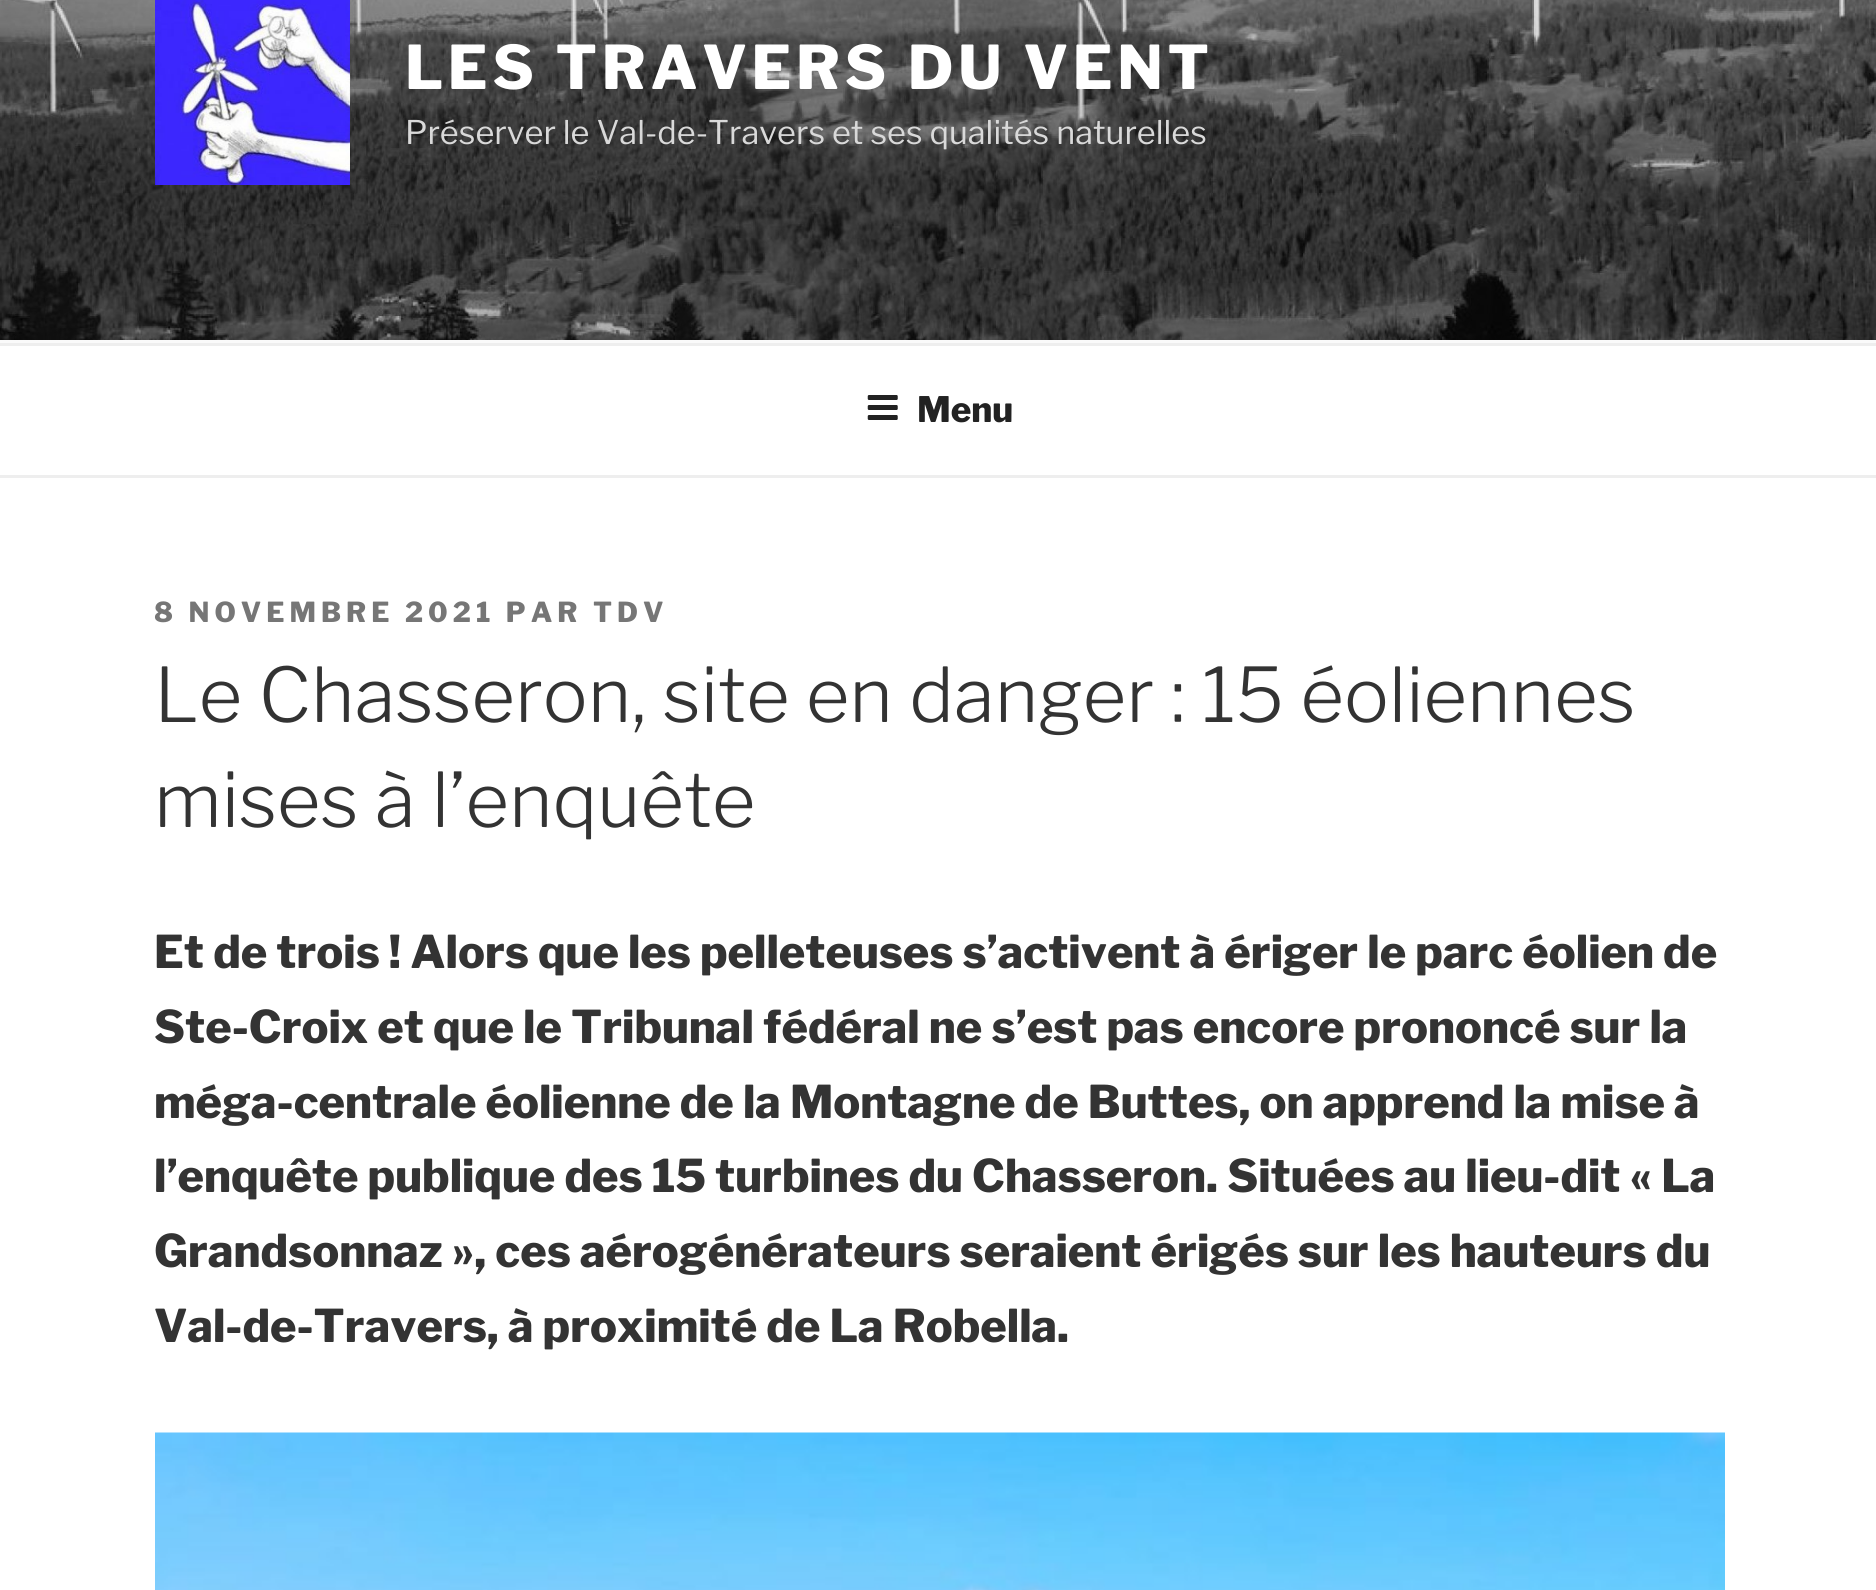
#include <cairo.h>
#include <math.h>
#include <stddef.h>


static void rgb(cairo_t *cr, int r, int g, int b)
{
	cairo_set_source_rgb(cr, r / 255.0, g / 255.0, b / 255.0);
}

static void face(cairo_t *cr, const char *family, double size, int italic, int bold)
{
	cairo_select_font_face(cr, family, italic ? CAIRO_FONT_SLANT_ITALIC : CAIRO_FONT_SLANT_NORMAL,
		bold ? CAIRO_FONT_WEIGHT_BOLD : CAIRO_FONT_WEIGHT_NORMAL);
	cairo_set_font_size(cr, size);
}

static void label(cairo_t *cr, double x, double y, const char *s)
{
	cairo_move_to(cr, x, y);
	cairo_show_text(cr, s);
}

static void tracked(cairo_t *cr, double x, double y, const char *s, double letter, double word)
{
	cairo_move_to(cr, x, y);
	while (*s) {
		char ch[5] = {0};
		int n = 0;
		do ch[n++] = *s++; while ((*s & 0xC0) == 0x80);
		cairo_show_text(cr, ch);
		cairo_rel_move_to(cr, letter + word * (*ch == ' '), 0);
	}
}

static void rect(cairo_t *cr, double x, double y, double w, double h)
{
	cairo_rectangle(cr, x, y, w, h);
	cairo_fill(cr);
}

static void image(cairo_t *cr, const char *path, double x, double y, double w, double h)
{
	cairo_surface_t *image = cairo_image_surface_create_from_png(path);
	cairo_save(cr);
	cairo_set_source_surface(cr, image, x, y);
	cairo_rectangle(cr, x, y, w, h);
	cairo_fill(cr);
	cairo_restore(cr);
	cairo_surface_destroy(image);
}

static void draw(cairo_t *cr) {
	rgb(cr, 255, 255, 255);
	cairo_paint(cr);
	rgb(cr, 250, 250, 250);
	rect(cr, 0, 340, 1876, 3);
	image(cr, "image0.png", 0, 0, 1876, 340);
	image(cr, "image1.png", 155, 0, 195, 185);
	face(cr, "Libre Franklin Thin", 60, 0, 0);
	rgb(cr, 255, 255, 255);
	tracked(cr, 405, 89, "LES TRAVERS DU VENT", 4.75, 0);
	face(cr, "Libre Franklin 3 Thin", 32.5, 0, 0);
	rgb(cr, 217, 217, 217);
	label(cr, 405, 144, "Préserver le Val-de-Travers et ses qualités naturelles");
	rgb(cr, 238, 238, 238);
	rect(cr, 0, 343, 1876, 3);
	rect(cr, 0, 475, 1876, 3);
	image(cr, "image2.png", 867, 395, 31, 25);
	face(cr, "Libre Franklin Thin", 35, 0, 0);
	rgb(cr, 34, 34, 34);
	label(cr, 917, 422, "Menu");
	face(cr, "Libre Franklin Thin", 27.5, 0, 0);
	rgb(cr, 118, 118, 118);
	tracked(cr, 154, 622, "8 NOVEMBRE 2021 PAR TDV", 5, 0);
	face(cr, "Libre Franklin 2 Thin", 75, 0, 0);
	rgb(cr, 51, 51, 51);
	label(cr, 154, 722, "Le Chasseron, site en danger : 15 éoliennes");
	label(cr, 154, 827, "mises à l’enquête");
	face(cr, "Libre Franklin Thin", 45, 0, 0);
	label(cr, 154, 968, "Et de trois ! Alors que les pelleteuses s’activent à ériger le parc éolien de");
	label(cr, 154, 1043, "Ste-Croix et que le Tribunal fédéral ne s’est pas encore prononcé sur la");
	label(cr, 154, 1118, "méga-centrale éolienne de la Montagne de Buttes, on apprend la mise à");
	label(cr, 154, 1192, "l’enquête publique des 15 turbines du Chasseron. Situées au lieu-dit « La");
	label(cr, 154, 1267, "Grandsonnaz », ces aérogénérateurs seraient érigés sur les hauteurs du");
	label(cr, 154, 1342, "Val-de-Travers, à proximité de La Robella.");
	image(cr, "image3.png", 155, 1432, 1570, 158);
}

int main(void) {
	cairo_surface_t *surface = cairo_image_surface_create(CAIRO_FORMAT_RGB24, 1876, 1590);
	cairo_t *cr = cairo_create(surface);
	cairo_font_options_t *options = cairo_font_options_create();
	cairo_font_options_set_hint_metrics(options, CAIRO_HINT_METRICS_OFF);
	cairo_font_options_set_hint_style(options, CAIRO_HINT_STYLE_NONE);
	cairo_set_font_options(cr, options);
	cairo_set_miter_limit(cr, 4);
	draw(cr);
	cairo_surface_write_to_png(surface, "render.png");
	cairo_font_options_destroy(options);
	cairo_destroy(cr);
	cairo_surface_destroy(surface);
	return 0;
}
